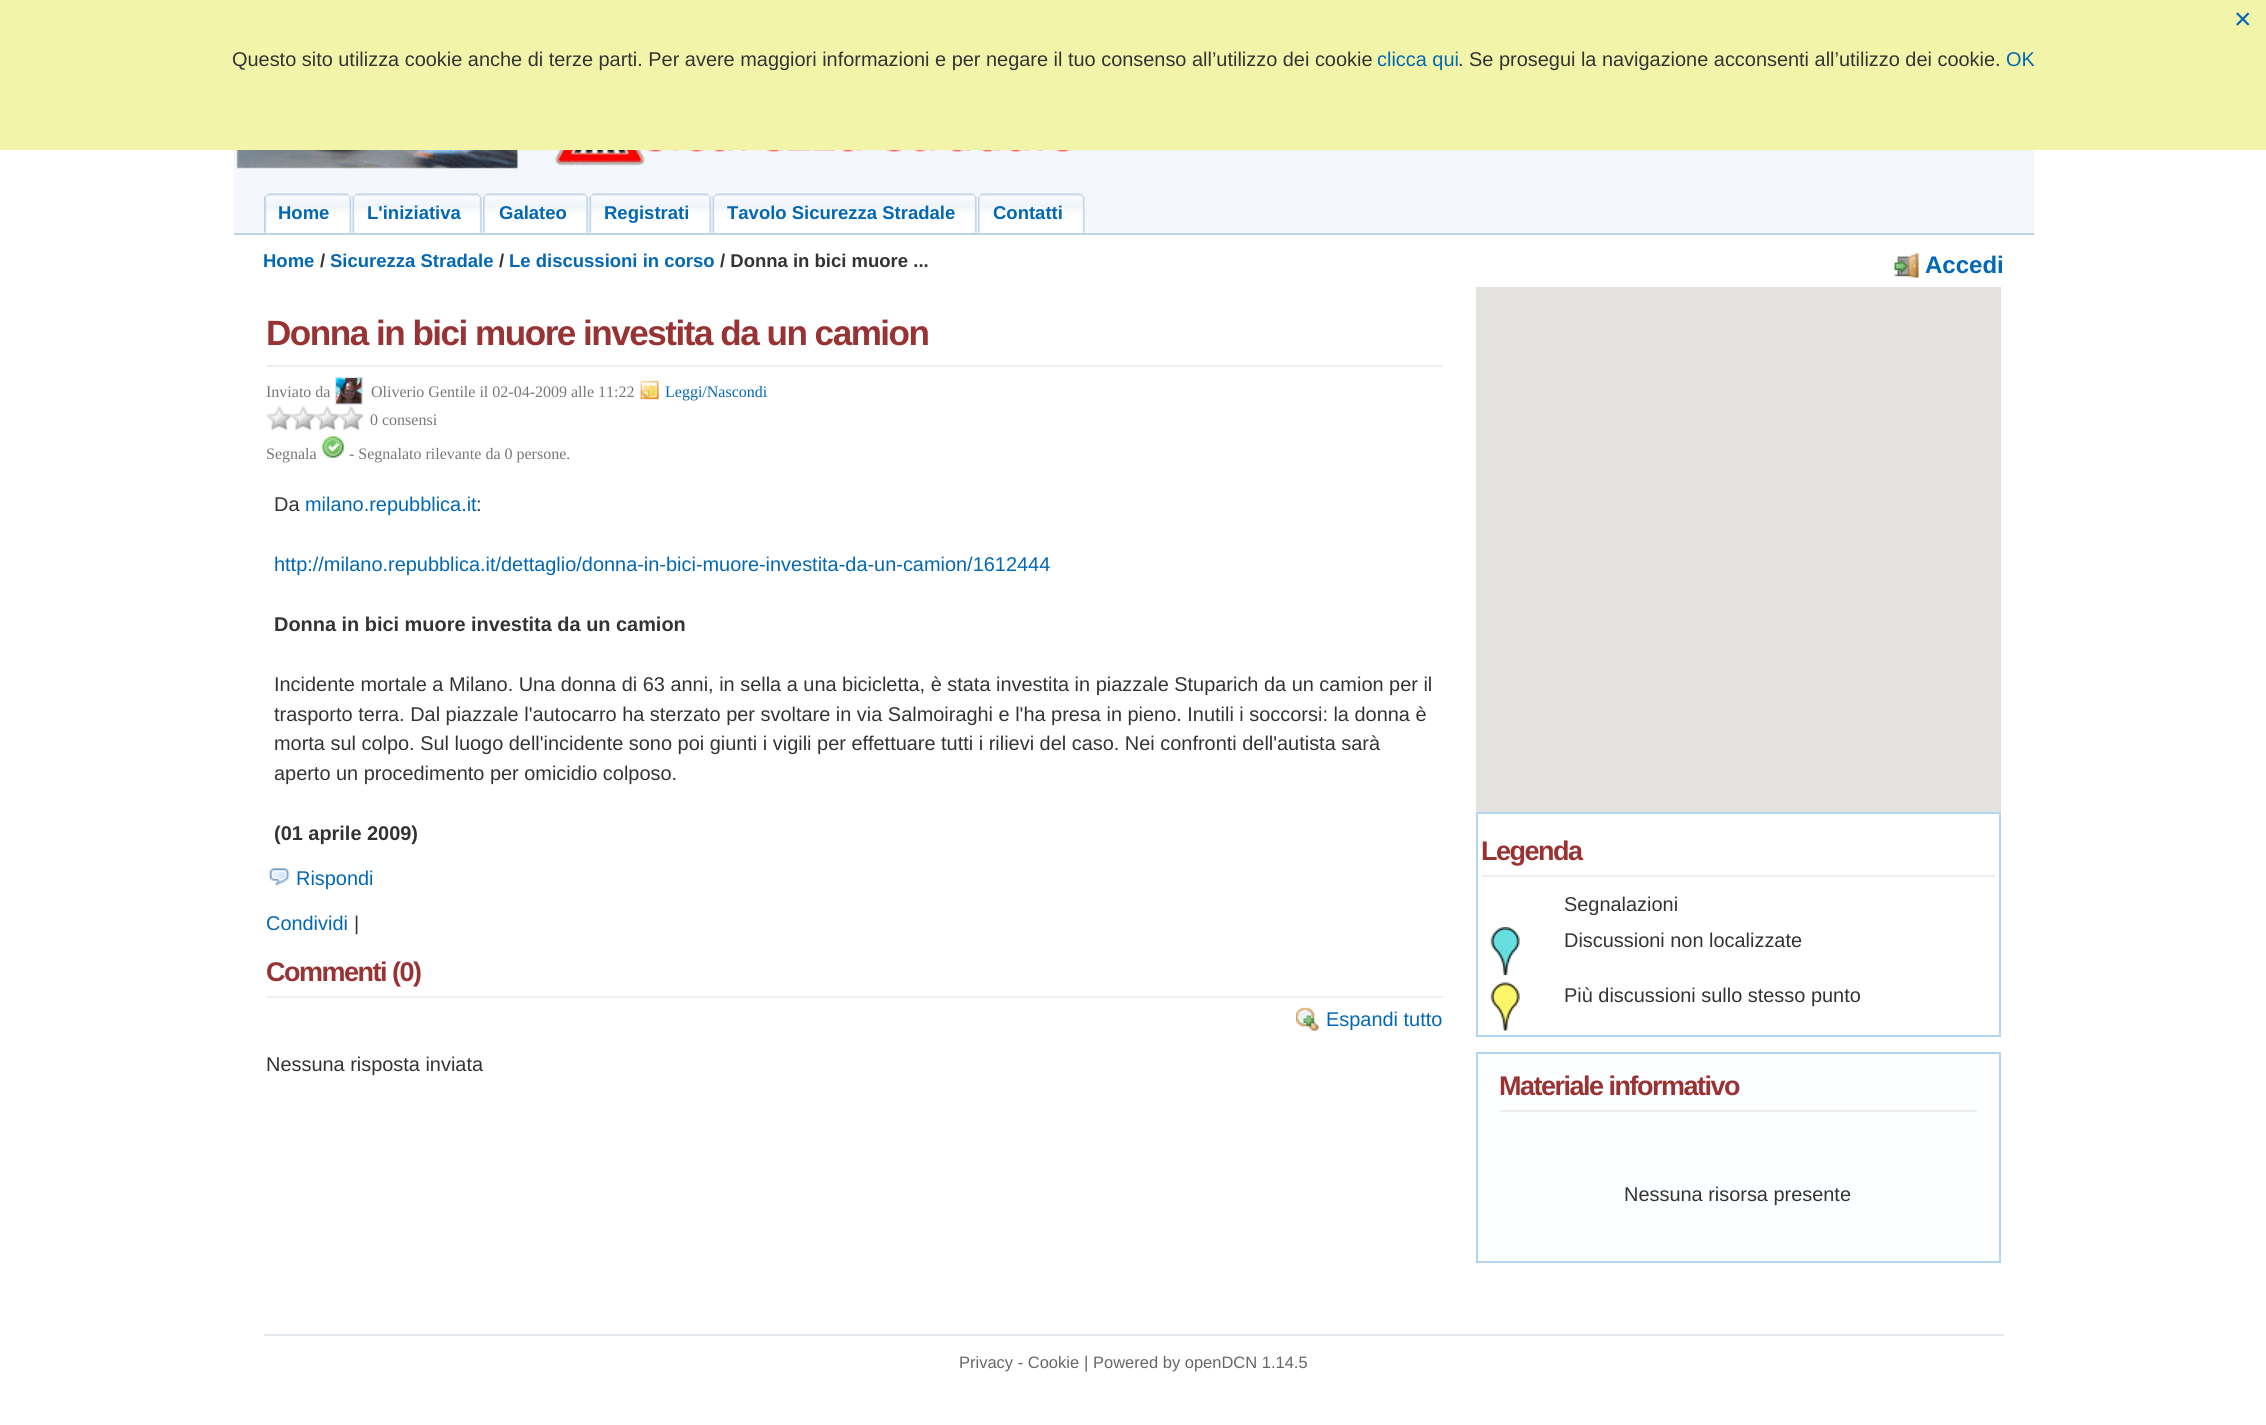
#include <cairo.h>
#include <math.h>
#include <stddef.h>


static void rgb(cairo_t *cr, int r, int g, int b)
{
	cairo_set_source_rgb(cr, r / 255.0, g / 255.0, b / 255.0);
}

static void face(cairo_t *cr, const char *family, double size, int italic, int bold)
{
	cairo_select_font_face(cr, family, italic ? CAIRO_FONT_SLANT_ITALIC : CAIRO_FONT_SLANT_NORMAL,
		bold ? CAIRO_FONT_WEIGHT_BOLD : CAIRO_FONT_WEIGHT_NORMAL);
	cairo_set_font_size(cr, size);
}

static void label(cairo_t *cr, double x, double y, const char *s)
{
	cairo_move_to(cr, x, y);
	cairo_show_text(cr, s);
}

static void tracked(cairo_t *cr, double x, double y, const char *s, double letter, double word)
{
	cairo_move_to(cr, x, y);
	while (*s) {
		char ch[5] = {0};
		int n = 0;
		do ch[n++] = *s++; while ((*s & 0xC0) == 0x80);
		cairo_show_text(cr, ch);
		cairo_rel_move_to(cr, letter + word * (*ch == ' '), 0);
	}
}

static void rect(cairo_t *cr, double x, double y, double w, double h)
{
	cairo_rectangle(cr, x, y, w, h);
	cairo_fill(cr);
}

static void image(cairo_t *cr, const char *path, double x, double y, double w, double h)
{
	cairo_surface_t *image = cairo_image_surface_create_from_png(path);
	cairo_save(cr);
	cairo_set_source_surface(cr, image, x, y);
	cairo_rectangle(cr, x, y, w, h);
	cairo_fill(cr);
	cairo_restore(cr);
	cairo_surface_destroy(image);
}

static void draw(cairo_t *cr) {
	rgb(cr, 255, 255, 255);
	cairo_paint(cr);
	rgb(cr, 242, 245, 169);
	rect(cr, 0, 0, 2266, 150);
	face(cr, "Liberation Sans", 30, 0, 0);
	rgb(cr, 2, 103, 181);
	label(cr, 2234, 29, "×");
	face(cr, "Liberation Sans", 19.92, 0, 0);
	rgb(cr, 51, 51, 51);
	label(cr, 232, 66, "Questo sito utilizza cookie anche di terze parti. Per avere maggiori informazioni e per negare il tuo consenso all’utilizzo dei cookie");
	rgb(cr, 2, 103, 181);
	label(cr, 1377, 66, "clicca qui");
	rgb(cr, 51, 51, 51);
	label(cr, 1458, 66, ". Se prosegui la navigazione acconsenti all’utilizzo dei cookie.");
	rgb(cr, 2, 103, 181);
	label(cr, 2006, 66, "OK");
	rgb(cr, 244, 247, 251);
	rect(cr, 234, 150, 1800, 83);
	image(cr, "image0.png", 236, 150, 837, 19);
	rgb(cr, 188, 210, 230);
	rect(cr, 234, 233, 1800, 2);
	image(cr, "image1.png", 264, 193, 8, 40);
	image(cr, "image2.png", 270, 193, 82, 40);
	face(cr, "Liberation Sans", 18.5, 0, 1);
	rgb(cr, 2, 103, 181);
	label(cr, 278, 219, "Home");
	image(cr, "image3.png", 352, 193, 7, 40);
	image(cr, "image4.png", 358, 193, 124, 40);
	label(cr, 367, 219, "L'iniziativa");
	image(cr, "image5.png", 483, 193, 6, 40);
	image(cr, "image6.png", 489, 193, 100, 40);
	label(cr, 499, 219, "Galateo");
	image(cr, "image3.png", 589, 193, 7, 40);
	image(cr, "image7.png", 595, 193, 117, 40);
	label(cr, 604, 219, "Registrati");
	image(cr, "image3.png", 712, 193, 7, 40);
	image(cr, "image8.png", 718, 193, 259, 40);
	label(cr, 727, 219, "Tavolo Sicurezza Stradale");
	image(cr, "image9.png", 978, 193, 6, 40);
	image(cr, "image10.png", 984, 193, 101, 40);
	label(cr, 993, 219, "Contatti");
	label(cr, 263, 267, "Home");
	rgb(cr, 51, 51, 51);
	label(cr, 320, 267, "/");
	rgb(cr, 2, 103, 181);
	label(cr, 330, 267, "Sicurezza Stradale");
	rgb(cr, 51, 51, 51);
	label(cr, 499, 267, "/");
	rgb(cr, 2, 103, 181);
	label(cr, 509, 267, "Le discussioni in corso");
	rgb(cr, 51, 51, 51);
	label(cr, 720, 267, "/ Donna in bici muore ...");
	image(cr, "image11.png", 1894, 253, 25, 25);
	face(cr, "Liberation Sans", 24, 0, 1);
	rgb(cr, 2, 103, 181);
	label(cr, 1925, 273, "Accedi");
	rgb(cr, 238, 238, 238);
	rect(cr, 267, 365, 1176, 2);
	face(cr, "Liberation Sans", 35.1, 0, 1);
	rgb(cr, 153, 51, 51);
	tracked(cr, 266, 345, "Donna in bici muore investita da un camion", -1.5, 0);
	cairo_rectangle(cr, 336, 378, 26, 26);
	rgb(cr, 217, 230, 239);
	cairo_stroke(cr);
	face(cr, "Liberation Serif", 16, 0, 0);
	rgb(cr, 119, 119, 119);
	label(cr, 266, 397, "Inviato da");
	image(cr, "image12.png", 336, 378, 26, 26);
	label(cr, 371, 397, "Oliverio Gentile il 02-04-2009 alle 11:22");
	image(cr, "image13.png", 640, 380, 19, 20);
	rgb(cr, 2, 103, 181);
	label(cr, 665, 397, "Leggi/Nascondi");
	image(cr, "image14.png", 267, 406, 96, 25);
	rgb(cr, 119, 119, 119);
	label(cr, 370, 425, "0 consensi");
	label(cr, 266, 459, "Segnala");
	image(cr, "image15.png", 322, 436, 22, 22);
	label(cr, 349, 459, "- Segnalato rilevante da 0 persone.");
	face(cr, "Liberation Sans", 19.92, 0, 0);
	rgb(cr, 51, 51, 51);
	label(cr, 274, 511, "Da");
	rgb(cr, 2, 103, 181);
	label(cr, 305, 511, "milano.repubblica.it");
	rgb(cr, 51, 51, 51);
	label(cr, 476, 511, ":");
	rgb(cr, 2, 103, 181);
	label(cr, 274, 571, "http://milano.repubblica.it/dettaglio/donna-in-bici-muore-investita-da-un-camion/1612444");
	face(cr, "Liberation Sans", 19.92, 0, 1);
	rgb(cr, 51, 51, 51);
	label(cr, 274, 631, "Donna in bici muore investita da un camion");
	face(cr, "Liberation Sans", 19.92, 0, 0);
	label(cr, 274, 691, "Incidente mortale a Milano. Una donna di 63 anni, in sella a una bicicletta, è stata investita in piazzale Stuparich da un camion per il");
	label(cr, 274, 721, "trasporto terra. Dal piazzale l'autocarro ha sterzato per svoltare in via Salmoiraghi e l'ha presa in pieno. Inutili i soccorsi: la donna è");
	label(cr, 274, 750, "morta sul colpo. Sul luogo dell'incidente sono poi giunti i vigili per effettuare tutti i rilievi del caso. Nei confronti dell'autista sarà");
	label(cr, 274, 780, "aperto un procedimento per omicidio colposo.");
	face(cr, "Liberation Sans", 19.92, 0, 1);
	label(cr, 274, 840, "(01 aprile 2009)");
	image(cr, "image16.png", 268, 868, 22, 18);
	face(cr, "Liberation Sans", 19.92, 0, 0);
	rgb(cr, 2, 103, 181);
	label(cr, 296, 885, "Rispondi");
	label(cr, 266, 930, "Condividi");
	rgb(cr, 51, 51, 51);
	label(cr, 354, 930, "|");
	rgb(cr, 238, 238, 238);
	rect(cr, 267, 996, 1176, 2);
	face(cr, "Liberation Sans", 27, 0, 1);
	rgb(cr, 153, 51, 51);
	tracked(cr, 266, 981, "Commenti (0)", -1.5, 0);
	image(cr, "image17.png", 1296, 1007, 23, 24);
	face(cr, "Liberation Sans", 19.92, 0, 0);
	rgb(cr, 2, 103, 181);
	label(cr, 1326, 1026, "Espandi tutto");
	rgb(cr, 51, 51, 51);
	label(cr, 266, 1071, "Nessuna risposta inviata");
	rgb(cr, 229, 227, 223);
	rect(cr, 1476, 287, 525, 525);
	cairo_rectangle(cr, 1477, 813, 523, 223);
	rgb(cr, 179, 213, 239);
	cairo_stroke(cr);
	rgb(cr, 238, 238, 238);
	rect(cr, 1482, 875, 513, 2);
	face(cr, "Liberation Sans", 27, 0, 1);
	rgb(cr, 153, 51, 51);
	tracked(cr, 1481, 860, "Legenda", -1.5, 0);
	face(cr, "Liberation Sans", 19.92, 0, 0);
	rgb(cr, 51, 51, 51);
	label(cr, 1564, 911, "Segnalazioni");
	image(cr, "image18.png", 1490, 927, 30, 48);
	label(cr, 1564, 947, "Discussioni non localizzate");
	image(cr, "image19.png", 1490, 982, 30, 49);
	label(cr, 1564, 1002, "Più discussioni sullo stesso punto");
	rgb(cr, 252, 254, 255);
	cairo_rectangle(cr, 1477, 1053, 523, 209);
	cairo_fill_preserve(cr);
	rgb(cr, 179, 213, 239);
	cairo_stroke(cr);
	rgb(cr, 238, 238, 238);
	rect(cr, 1500, 1110, 477, 2);
	face(cr, "Liberation Sans", 27, 0, 1);
	rgb(cr, 153, 51, 51);
	tracked(cr, 1499, 1095, "Materiale informativo", -1.5, 0);
	face(cr, "Liberation Sans", 19.92, 0, 0);
	rgb(cr, 51, 51, 51);
	label(cr, 1624, 1201, "Nessuna risorsa presente");
	rgb(cr, 227, 232, 238);
	rect(cr, 264, 1334, 1740, 2);
	face(cr, "Liberation Sans", 16.5, 0, 0);
	rgb(cr, 102, 102, 102);
	label(cr, 959, 1368, "Privacy - Cookie");
	face(cr, "Liberation Sans", 17, 0, 0);
	label(cr, 1084, 1368, "|");
	face(cr, "Liberation Sans", 16.5, 0, 0);
	label(cr, 1093, 1368, "Powered by openDCN 1.14.5");
}

int main(void) {
	cairo_surface_t *surface = cairo_image_surface_create(CAIRO_FORMAT_RGB24, 2266, 1425);
	cairo_t *cr = cairo_create(surface);
	cairo_font_options_t *options = cairo_font_options_create();
	cairo_font_options_set_hint_metrics(options, CAIRO_HINT_METRICS_OFF);
	cairo_font_options_set_hint_style(options, CAIRO_HINT_STYLE_NONE);
	cairo_set_font_options(cr, options);
	cairo_set_miter_limit(cr, 4);
	draw(cr);
	cairo_surface_write_to_png(surface, "render.png");
	cairo_font_options_destroy(options);
	cairo_destroy(cr);
	cairo_surface_destroy(surface);
	return 0;
}
